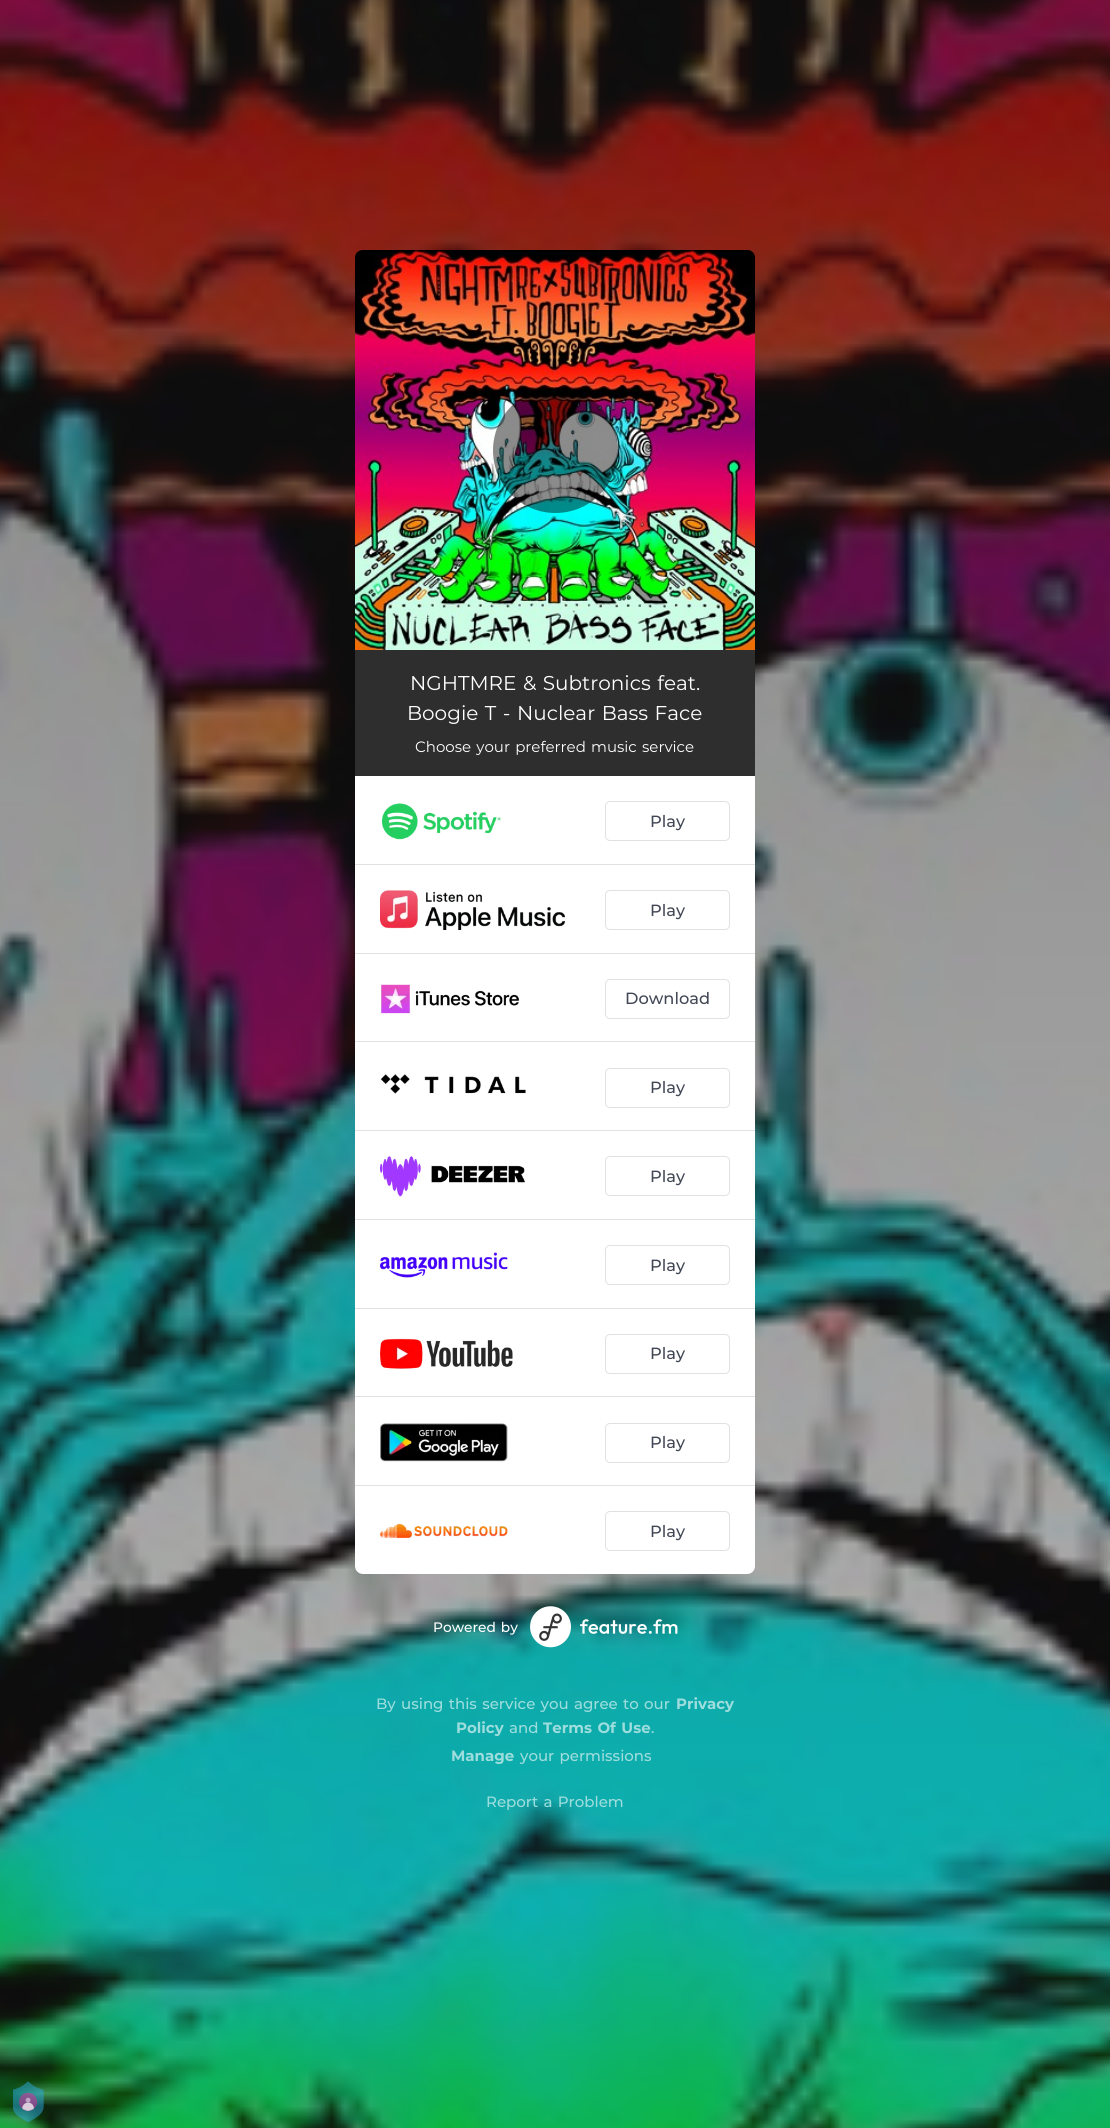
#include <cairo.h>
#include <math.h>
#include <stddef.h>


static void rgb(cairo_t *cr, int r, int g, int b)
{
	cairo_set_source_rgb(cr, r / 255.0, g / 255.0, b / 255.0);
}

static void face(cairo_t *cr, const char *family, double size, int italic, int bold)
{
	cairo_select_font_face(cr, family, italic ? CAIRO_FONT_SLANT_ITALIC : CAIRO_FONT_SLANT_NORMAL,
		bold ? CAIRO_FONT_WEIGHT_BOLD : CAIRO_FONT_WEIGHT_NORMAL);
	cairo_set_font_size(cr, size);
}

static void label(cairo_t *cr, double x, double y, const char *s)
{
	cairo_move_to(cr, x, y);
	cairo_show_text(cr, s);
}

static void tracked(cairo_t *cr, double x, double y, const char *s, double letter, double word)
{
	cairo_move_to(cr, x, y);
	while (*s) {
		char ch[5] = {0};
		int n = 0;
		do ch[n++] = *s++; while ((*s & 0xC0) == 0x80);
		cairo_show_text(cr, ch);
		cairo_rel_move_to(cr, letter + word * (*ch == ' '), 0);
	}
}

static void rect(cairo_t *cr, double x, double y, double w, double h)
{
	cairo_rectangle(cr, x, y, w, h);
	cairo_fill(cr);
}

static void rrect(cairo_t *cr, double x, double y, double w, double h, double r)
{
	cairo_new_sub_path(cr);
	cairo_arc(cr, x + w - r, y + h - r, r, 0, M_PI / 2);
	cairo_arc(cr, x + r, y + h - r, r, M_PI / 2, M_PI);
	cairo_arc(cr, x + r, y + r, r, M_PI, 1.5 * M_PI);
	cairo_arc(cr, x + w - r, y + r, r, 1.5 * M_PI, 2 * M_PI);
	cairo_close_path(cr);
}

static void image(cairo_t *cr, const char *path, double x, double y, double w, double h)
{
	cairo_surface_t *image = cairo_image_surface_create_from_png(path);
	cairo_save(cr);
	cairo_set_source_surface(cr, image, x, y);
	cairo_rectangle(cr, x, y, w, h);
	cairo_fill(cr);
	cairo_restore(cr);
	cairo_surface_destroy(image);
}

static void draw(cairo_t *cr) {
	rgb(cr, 255, 255, 255);
	cairo_paint(cr);
	image(cr, "image0.png", 0, 0, 1110, 2128);
	image(cr, "image1.png", 355, 250, 400, 400);
	cairo_set_source_rgba(cr, 0, 0, 0, 0.45);
	cairo_arc(cr, 555.5, 450.5, 62.5, 0, 2 * M_PI);
	cairo_fill(cr);
	rgb(cr, 46, 46, 46);
	rect(cr, 355, 650, 400, 126);
	face(cr, "Montserrat", 20, 0, 0);
	rgb(cr, 255, 255, 255);
	tracked(cr, 410, 690, "NGHTMRE & Subtronics feat.", 0, 1.25);
	tracked(cr, 407, 720, "Boogie T - Nuclear Bass Face", 0, 1.25);
	face(cr, "Montserrat", 15, 0, 0);
	tracked(cr, 415, 752, "Choose your preferred music service", 0, 1.25);
	cairo_new_path(cr);
	cairo_move_to(cr, 355, 776);
	cairo_line_to(cr, 755, 776);
	cairo_line_to(cr, 755, 1566);
	cairo_curve_to(cr, 755, 1570.5, 751.5, 1574, 747, 1574);
	cairo_line_to(cr, 363, 1574);
	cairo_curve_to(cr, 358.5, 1574, 355, 1570.5, 355, 1566);
	cairo_close_path(cr);
	cairo_fill(cr);
	rgb(cr, 225, 225, 228);
	rect(cr, 355, 864, 400, 1);
	image(cr, "image2.png", 381, 803, 121, 37);
	rrect(cr, 605.5, 801.5, 124, 39, 4.5);
	cairo_set_line_width(cr, 1);
	cairo_stroke(cr);
	face(cr, "Montserrat Medium", 16.25, 0, 0);
	rgb(cr, 65, 71, 84);
	label(cr, 650, 827, "Play");
	rgb(cr, 225, 225, 228);
	rect(cr, 355, 953, 400, 1);
	image(cr, "image3.png", 380, 890, 185, 40);
	rrect(cr, 605.5, 890.5, 124, 39, 4.5);
	cairo_stroke(cr);
	rgb(cr, 65, 71, 84);
	label(cr, 650, 916, "Play");
	rgb(cr, 225, 225, 228);
	rect(cr, 355, 1041, 400, 1);
	image(cr, "image4.png", 381, 984, 139, 30);
	rrect(cr, 605.5, 979.5, 124, 39, 4.5);
	cairo_stroke(cr);
	rgb(cr, 65, 71, 84);
	label(cr, 625, 1004, "Download");
	rgb(cr, 225, 225, 228);
	rect(cr, 355, 1130, 400, 1);
	image(cr, "image5.png", 380, 1074, 146, 20);
	rrect(cr, 605.5, 1068.5, 124, 39, 4.5);
	cairo_stroke(cr);
	rgb(cr, 65, 71, 84);
	label(cr, 650, 1093, "Play");
	rgb(cr, 225, 225, 228);
	rect(cr, 355, 1219, 400, 1);
	image(cr, "image6.png", 380, 1156, 145, 41);
	rrect(cr, 605.5, 1156.5, 124, 39, 4.5);
	cairo_stroke(cr);
	rgb(cr, 65, 71, 84);
	label(cr, 650, 1182, "Play");
	rgb(cr, 225, 225, 228);
	rect(cr, 355, 1308, 400, 1);
	image(cr, "image7.png", 380, 1252, 128, 26);
	rrect(cr, 605.5, 1245.5, 124, 39, 4.5);
	cairo_stroke(cr);
	rgb(cr, 65, 71, 84);
	label(cr, 650, 1271, "Play");
	rgb(cr, 225, 225, 228);
	rect(cr, 355, 1396, 400, 1);
	image(cr, "image8.png", 380, 1338, 133, 31);
	rrect(cr, 605.5, 1334.5, 124, 39, 4.5);
	cairo_stroke(cr);
	rgb(cr, 65, 71, 84);
	label(cr, 650, 1359, "Play");
	rgb(cr, 225, 225, 228);
	rect(cr, 355, 1485, 400, 1);
	image(cr, "image9.png", 380, 1423, 128, 39);
	rrect(cr, 605.5, 1423.5, 124, 39, 4.5);
	cairo_stroke(cr);
	rgb(cr, 65, 71, 84);
	label(cr, 650, 1448, "Play");
	image(cr, "image10.png", 380, 1523, 128, 15);
	rrect(cr, 605.5, 1511.5, 124, 39, 4.5);
	rgb(cr, 225, 225, 228);
	cairo_stroke(cr);
	rgb(cr, 65, 71, 84);
	label(cr, 650, 1537, "Play");
	face(cr, "Montserrat Medium", 13.75, 0, 0);
	rgb(cr, 255, 255, 255);
	tracked(cr, 433, 1632, "Powered by", 0, 1.25);
	image(cr, "image11.png", 530, 1606, 148, 42);
	face(cr, "Montserrat Medium", 15, 0, 0);
	rgb(cr, 158, 221, 221);
	tracked(cr, 376, 1709, "By using this service you agree to our", 0, 1.25);
	face(cr, "Montserrat", 15, 0, 1);
	label(cr, 676, 1709, "Privacy");
	label(cr, 456, 1733, "Policy");
	face(cr, "Montserrat Medium", 15, 0, 0);
	label(cr, 509, 1733, "and");
	face(cr, "Montserrat", 15, 0, 1);
	tracked(cr, 543, 1733, "Terms Of Use", 0, 1.25);
	face(cr, "Montserrat Medium", 15, 0, 0);
	label(cr, 651, 1733, ".");
	face(cr, "Montserrat", 15, 0, 1);
	label(cr, 451, 1761, "Manage");
	face(cr, "Montserrat Medium", 15, 0, 0);
	tracked(cr, 520, 1761, "your permissions", 0, 1.25);
	tracked(cr, 486, 1807, "Report a Problem", 0, 1.25);
	image(cr, "image12.png", 13, 2081, 31, 42);
}

int main(void) {
	cairo_surface_t *surface = cairo_image_surface_create(CAIRO_FORMAT_RGB24, 1110, 2128);
	cairo_t *cr = cairo_create(surface);
	cairo_font_options_t *options = cairo_font_options_create();
	cairo_font_options_set_hint_metrics(options, CAIRO_HINT_METRICS_OFF);
	cairo_font_options_set_hint_style(options, CAIRO_HINT_STYLE_NONE);
	cairo_set_font_options(cr, options);
	cairo_set_miter_limit(cr, 4);
	draw(cr);
	cairo_surface_write_to_png(surface, "render.png");
	cairo_font_options_destroy(options);
	cairo_destroy(cr);
	cairo_surface_destroy(surface);
	return 0;
}
